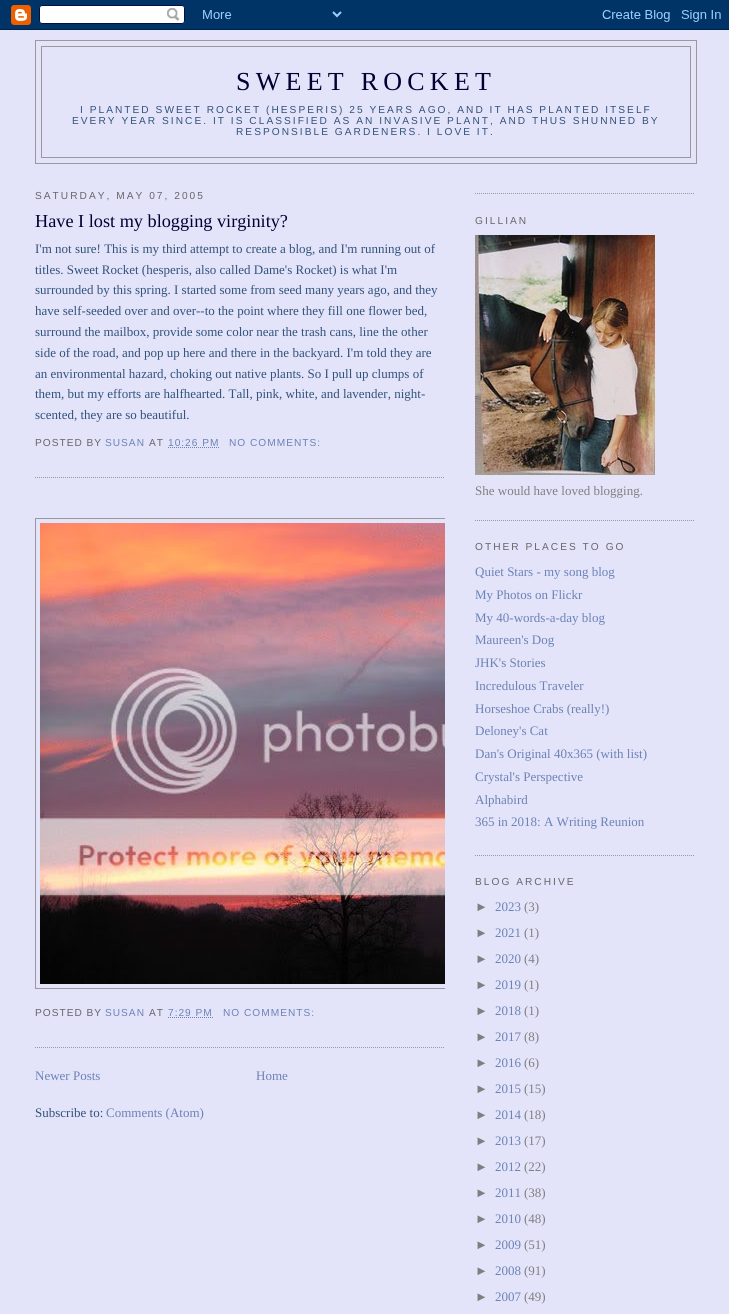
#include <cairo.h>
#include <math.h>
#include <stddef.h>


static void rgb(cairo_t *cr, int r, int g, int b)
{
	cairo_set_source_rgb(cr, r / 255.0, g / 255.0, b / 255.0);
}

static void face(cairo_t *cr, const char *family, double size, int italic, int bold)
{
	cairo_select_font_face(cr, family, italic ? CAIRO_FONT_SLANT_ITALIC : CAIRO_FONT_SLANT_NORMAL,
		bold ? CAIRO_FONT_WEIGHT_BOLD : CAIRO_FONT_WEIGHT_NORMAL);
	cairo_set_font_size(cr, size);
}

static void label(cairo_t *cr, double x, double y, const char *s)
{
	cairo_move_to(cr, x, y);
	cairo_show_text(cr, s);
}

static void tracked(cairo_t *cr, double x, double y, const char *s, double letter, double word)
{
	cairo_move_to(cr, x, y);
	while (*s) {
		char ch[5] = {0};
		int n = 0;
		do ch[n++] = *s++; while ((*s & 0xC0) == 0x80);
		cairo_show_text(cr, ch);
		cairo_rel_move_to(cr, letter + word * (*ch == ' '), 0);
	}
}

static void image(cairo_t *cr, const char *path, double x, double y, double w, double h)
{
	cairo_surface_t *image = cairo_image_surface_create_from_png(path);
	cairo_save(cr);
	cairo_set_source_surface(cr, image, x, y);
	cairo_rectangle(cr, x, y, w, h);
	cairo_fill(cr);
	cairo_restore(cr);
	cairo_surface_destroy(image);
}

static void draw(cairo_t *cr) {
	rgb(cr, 227, 228, 250);
	cairo_paint(cr);
	image(cr, "image0.png", 0, 0, 729, 30);
	cairo_rectangle(cr, 35.5, 40.5, 661, 123);
	rgb(cr, 153, 153, 153);
	cairo_set_line_width(cr, 1);
	cairo_stroke(cr);
	cairo_rectangle(cr, 41.5, 46.5, 649, 111);
	cairo_stroke(cr);
	face(cr, "Liberation Serif", 26, 0, 0);
	rgb(cr, 0, 0, 51);
	tracked(cr, 236, 90, "SWEET ROCKET", 5.25, 0);
	face(cr, "Liberation Sans", 10.15, 0, 0);
	rgb(cr, 50, 82, 122);
	tracked(cr, 80, 113, "I PLANTED SWEET ROCKET (HESPERIS) 25 YEARS AGO, AND IT HAS PLANTED ITSELF", 2.03, 0);
	tracked(cr, 72, 124, "EVERY YEAR SINCE. IT IS CLASSIFIED AS AN INVASIVE PLANT, AND THUS SHUNNED BY", 2.03, 0);
	tracked(cr, 236, 135, "RESPONSIBLE GARDENERS. I LOVE IT.", 2.03, 0);
	rgb(cr, 102, 102, 102);
	tracked(cr, 35, 199, "SATURDAY, MAY 07, 2005", 2.03, 0);
	cairo_new_path(cr);
	cairo_move_to(cr, 35, 477.5);
	cairo_line_to(cr, 445, 477.5);
	rgb(cr, 153, 153, 153);
	cairo_set_dash(cr, (double[]){1, 1}, 2, 0);
	cairo_stroke(cr);
	face(cr, "Liberation Serif", 18.25, 0, 0);
	rgb(cr, 0, 0, 51);
	label(cr, 35, 227, "Have I lost my blogging virginity?");
	face(cr, "Liberation Serif", 13, 0, 0);
	rgb(cr, 50, 82, 122);
	label(cr, 35, 253, "I'm not sure! This is my third attempt to create a blog, and I'm running out of");
	label(cr, 35, 274, "titles. Sweet Rocket (hesperis, also called Dame's Rocket) is what I'm");
	label(cr, 35, 294, "surrounded by this spring. I started some from seed many years ago, and they");
	label(cr, 35, 315, "have self-seeded over and over--to the point where they fill one flower bed,");
	label(cr, 35, 336, "surround the mailbox, provide some color near the trash cans, line the other");
	label(cr, 35, 357, "side of the road, and pop up here and there in the backyard. I'm told they are");
	label(cr, 35, 378, "an environmental hazard, choking out native plants. So I pull up clumps of");
	label(cr, 35, 398, "them, but my efforts are halfhearted. Tall, pink, white, and lavender, night-");
	label(cr, 35, 419, "scented, they are so beautiful.");
	face(cr, "Liberation Sans", 10.15, 0, 0);
	rgb(cr, 102, 102, 102);
	tracked(cr, 35, 446, "POSTED BY", 1, 0);
	rgb(cr, 108, 130, 181);
	tracked(cr, 105, 446, "SUSAN", 1, 0);
	rgb(cr, 102, 102, 102);
	tracked(cr, 149, 446, "AT", 1, 0);
	rgb(cr, 108, 130, 181);
	tracked(cr, 168, 446, "10:26 PM", 1, 0);
	cairo_new_path(cr);
	cairo_move_to(cr, 168, 447.5);
	cairo_line_to(cr, 219.5, 447.5);
	cairo_stroke(cr);
	tracked(cr, 229, 446, "NO COMMENTS:", 1, 0);
	cairo_new_path(cr);
	cairo_move_to(cr, 35, 1047.5);
	cairo_line_to(cr, 445, 1047.5);
	rgb(cr, 153, 153, 153);
	cairo_stroke(cr);
	cairo_save(cr);
	cairo_rectangle(cr, 35, 174, 410, 994);
	cairo_clip(cr);
	cairo_rectangle(cr, 35.5, 518.5, 623, 470);
	cairo_set_dash(cr, NULL, 0, 0);
	cairo_stroke(cr);
	cairo_restore(cr);
	image(cr, "image1.png", 40, 523, 405, 461);
	rgb(cr, 102, 102, 102);
	tracked(cr, 35, 1016, "POSTED BY", 1, 0);
	rgb(cr, 108, 130, 181);
	tracked(cr, 105, 1016, "SUSAN", 1, 0);
	rgb(cr, 102, 102, 102);
	tracked(cr, 149, 1016, "AT", 1, 0);
	rgb(cr, 108, 130, 181);
	tracked(cr, 168, 1016, "7:29 PM", 1, 0);
	cairo_new_path(cr);
	cairo_move_to(cr, 168, 1017.5);
	cairo_line_to(cr, 213, 1017.5);
	cairo_stroke(cr);
	tracked(cr, 223, 1016, "NO COMMENTS:", 1, 0);
	face(cr, "Liberation Serif", 13, 0, 0);
	label(cr, 35, 1080, "Newer Posts");
	label(cr, 256, 1080, "Home");
	rgb(cr, 50, 82, 122);
	label(cr, 35, 1117, "Subscribe to:");
	rgb(cr, 108, 130, 181);
	label(cr, 106, 1117, "Comments (Atom)");
	cairo_new_path(cr);
	cairo_move_to(cr, 475, 193.5);
	cairo_line_to(cr, 695, 193.5);
	rgb(cr, 153, 153, 153);
	cairo_stroke(cr);
	cairo_new_path(cr);
	cairo_move_to(cr, 475, 520.5);
	cairo_line_to(cr, 695, 520.5);
	cairo_stroke(cr);
	face(cr, "Liberation Sans", 10.15, 0, 0);
	rgb(cr, 102, 102, 102);
	tracked(cr, 475, 224, "GILLIAN", 2.03, 0);
	image(cr, "image2.png", 475, 235, 180, 240);
	face(cr, "Liberation Serif", 13, 0, 0);
	rgb(cr, 127, 127, 127);
	label(cr, 475, 495, "She would have loved blogging.");
	cairo_new_path(cr);
	cairo_move_to(cr, 475, 855.5);
	cairo_line_to(cr, 695, 855.5);
	rgb(cr, 153, 153, 153);
	cairo_stroke(cr);
	face(cr, "Liberation Sans", 10.15, 0, 0);
	rgb(cr, 102, 102, 102);
	tracked(cr, 475, 550, "OTHER PLACES TO GO", 2.03, 0);
	face(cr, "Liberation Serif", 13, 0, 0);
	rgb(cr, 108, 130, 181);
	label(cr, 475, 576, "Quiet Stars - my song blog");
	label(cr, 475, 599, "My Photos on Flickr");
	label(cr, 475, 622, "My 40-words-a-day blog");
	label(cr, 475, 644, "Maureen's Dog");
	label(cr, 475, 667, "JHK's Stories");
	label(cr, 475, 690, "Incredulous Traveler");
	label(cr, 475, 713, "Horseshoe Crabs (really!)");
	label(cr, 475, 735, "Deloney's Cat");
	label(cr, 475, 758, "Dan's Original 40x365 (with list)");
	label(cr, 475, 781, "Crystal's Perspective");
	label(cr, 475, 804, "Alphabird");
	label(cr, 475, 826, "365 in 2018: A Writing Reunion");
	face(cr, "Liberation Sans", 10.15, 0, 0);
	rgb(cr, 102, 102, 102);
	tracked(cr, 475, 885, "BLOG ARCHIVE", 2.03, 0);
	face(cr, "Liberation Sans", 13, 0, 0);
	rgb(cr, 127, 127, 127);
	label(cr, 475, 911, "►");
	face(cr, "Liberation Serif", 13, 0, 0);
	rgb(cr, 108, 130, 181);
	label(cr, 495, 911, "2023");
	rgb(cr, 127, 127, 127);
	label(cr, 524, 911, "(3)");
	face(cr, "Liberation Sans", 13, 0, 0);
	label(cr, 475, 937, "►");
	face(cr, "Liberation Serif", 13, 0, 0);
	rgb(cr, 108, 130, 181);
	label(cr, 495, 937, "2021");
	rgb(cr, 127, 127, 127);
	label(cr, 524, 937, "(1)");
	face(cr, "Liberation Sans", 13, 0, 0);
	label(cr, 475, 963, "►");
	face(cr, "Liberation Serif", 13, 0, 0);
	rgb(cr, 108, 130, 181);
	label(cr, 495, 963, "2020");
	rgb(cr, 127, 127, 127);
	label(cr, 524, 963, "(4)");
	face(cr, "Liberation Sans", 13, 0, 0);
	label(cr, 475, 989, "►");
	face(cr, "Liberation Serif", 13, 0, 0);
	rgb(cr, 108, 130, 181);
	label(cr, 495, 989, "2019");
	rgb(cr, 127, 127, 127);
	label(cr, 524, 989, "(1)");
	face(cr, "Liberation Sans", 13, 0, 0);
	label(cr, 475, 1015, "►");
	face(cr, "Liberation Serif", 13, 0, 0);
	rgb(cr, 108, 130, 181);
	label(cr, 495, 1015, "2018");
	rgb(cr, 127, 127, 127);
	label(cr, 524, 1015, "(1)");
	face(cr, "Liberation Sans", 13, 0, 0);
	label(cr, 475, 1041, "►");
	face(cr, "Liberation Serif", 13, 0, 0);
	rgb(cr, 108, 130, 181);
	label(cr, 495, 1041, "2017");
	rgb(cr, 127, 127, 127);
	label(cr, 524, 1041, "(8)");
	face(cr, "Liberation Sans", 13, 0, 0);
	label(cr, 475, 1067, "►");
	face(cr, "Liberation Serif", 13, 0, 0);
	rgb(cr, 108, 130, 181);
	label(cr, 495, 1067, "2016");
	rgb(cr, 127, 127, 127);
	label(cr, 524, 1067, "(6)");
	face(cr, "Liberation Sans", 13, 0, 0);
	label(cr, 475, 1093, "►");
	face(cr, "Liberation Serif", 13, 0, 0);
	rgb(cr, 108, 130, 181);
	label(cr, 495, 1093, "2015");
	rgb(cr, 127, 127, 127);
	label(cr, 524, 1093, "(15)");
	face(cr, "Liberation Sans", 13, 0, 0);
	label(cr, 475, 1119, "►");
	face(cr, "Liberation Serif", 13, 0, 0);
	rgb(cr, 108, 130, 181);
	label(cr, 495, 1119, "2014");
	rgb(cr, 127, 127, 127);
	label(cr, 524, 1119, "(18)");
	face(cr, "Liberation Sans", 13, 0, 0);
	label(cr, 475, 1145, "►");
	face(cr, "Liberation Serif", 13, 0, 0);
	rgb(cr, 108, 130, 181);
	label(cr, 495, 1145, "2013");
	rgb(cr, 127, 127, 127);
	label(cr, 524, 1145, "(17)");
	face(cr, "Liberation Sans", 13, 0, 0);
	label(cr, 475, 1171, "►");
	face(cr, "Liberation Serif", 13, 0, 0);
	rgb(cr, 108, 130, 181);
	label(cr, 495, 1171, "2012");
	rgb(cr, 127, 127, 127);
	label(cr, 524, 1171, "(22)");
	face(cr, "Liberation Sans", 13, 0, 0);
	label(cr, 475, 1197, "►");
	face(cr, "Liberation Serif", 13, 0, 0);
	rgb(cr, 108, 130, 181);
	label(cr, 495, 1197, "2011");
	rgb(cr, 127, 127, 127);
	label(cr, 524, 1197, "(38)");
	face(cr, "Liberation Sans", 13, 0, 0);
	label(cr, 475, 1223, "►");
	face(cr, "Liberation Serif", 13, 0, 0);
	rgb(cr, 108, 130, 181);
	label(cr, 495, 1223, "2010");
	rgb(cr, 127, 127, 127);
	label(cr, 524, 1223, "(48)");
	face(cr, "Liberation Sans", 13, 0, 0);
	label(cr, 475, 1249, "►");
	face(cr, "Liberation Serif", 13, 0, 0);
	rgb(cr, 108, 130, 181);
	label(cr, 495, 1249, "2009");
	rgb(cr, 127, 127, 127);
	label(cr, 524, 1249, "(51)");
	face(cr, "Liberation Sans", 13, 0, 0);
	label(cr, 475, 1275, "►");
	face(cr, "Liberation Serif", 13, 0, 0);
	rgb(cr, 108, 130, 181);
	label(cr, 495, 1275, "2008");
	rgb(cr, 127, 127, 127);
	label(cr, 524, 1275, "(91)");
	face(cr, "Liberation Sans", 13, 0, 0);
	label(cr, 475, 1301, "►");
	face(cr, "Liberation Serif", 13, 0, 0);
	rgb(cr, 108, 130, 181);
	label(cr, 495, 1301, "2007");
	rgb(cr, 127, 127, 127);
	label(cr, 524, 1301, "(49)");
}

int main(void) {
	cairo_surface_t *surface = cairo_image_surface_create(CAIRO_FORMAT_RGB24, 729, 1314);
	cairo_t *cr = cairo_create(surface);
	cairo_font_options_t *options = cairo_font_options_create();
	cairo_font_options_set_hint_metrics(options, CAIRO_HINT_METRICS_OFF);
	cairo_font_options_set_hint_style(options, CAIRO_HINT_STYLE_NONE);
	cairo_set_font_options(cr, options);
	cairo_set_miter_limit(cr, 4);
	draw(cr);
	cairo_surface_write_to_png(surface, "render.png");
	cairo_font_options_destroy(options);
	cairo_destroy(cr);
	cairo_surface_destroy(surface);
	return 0;
}
